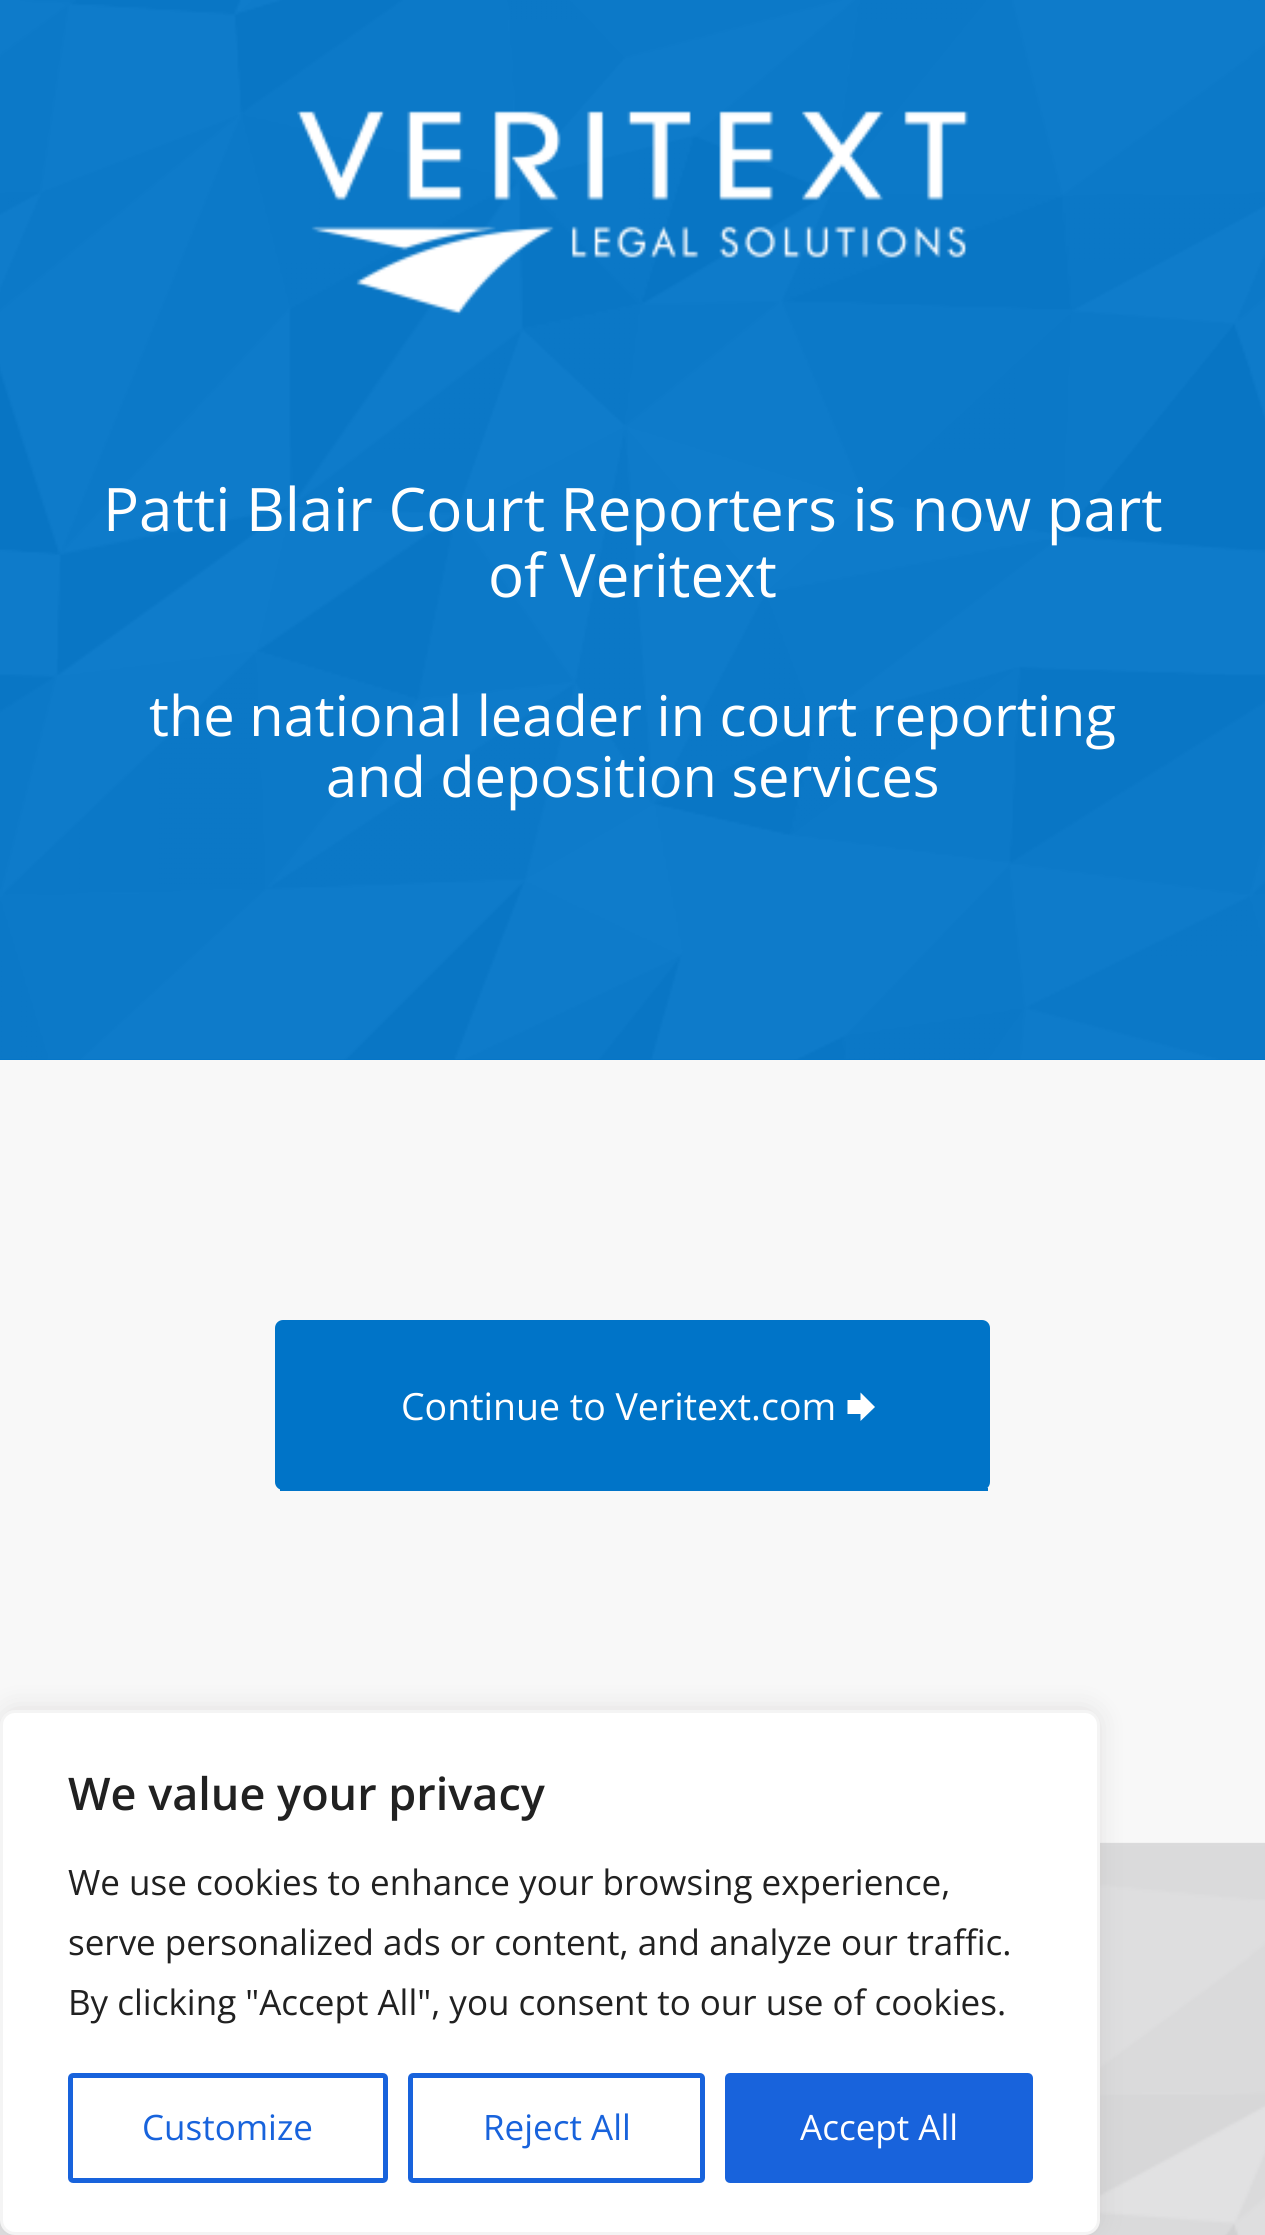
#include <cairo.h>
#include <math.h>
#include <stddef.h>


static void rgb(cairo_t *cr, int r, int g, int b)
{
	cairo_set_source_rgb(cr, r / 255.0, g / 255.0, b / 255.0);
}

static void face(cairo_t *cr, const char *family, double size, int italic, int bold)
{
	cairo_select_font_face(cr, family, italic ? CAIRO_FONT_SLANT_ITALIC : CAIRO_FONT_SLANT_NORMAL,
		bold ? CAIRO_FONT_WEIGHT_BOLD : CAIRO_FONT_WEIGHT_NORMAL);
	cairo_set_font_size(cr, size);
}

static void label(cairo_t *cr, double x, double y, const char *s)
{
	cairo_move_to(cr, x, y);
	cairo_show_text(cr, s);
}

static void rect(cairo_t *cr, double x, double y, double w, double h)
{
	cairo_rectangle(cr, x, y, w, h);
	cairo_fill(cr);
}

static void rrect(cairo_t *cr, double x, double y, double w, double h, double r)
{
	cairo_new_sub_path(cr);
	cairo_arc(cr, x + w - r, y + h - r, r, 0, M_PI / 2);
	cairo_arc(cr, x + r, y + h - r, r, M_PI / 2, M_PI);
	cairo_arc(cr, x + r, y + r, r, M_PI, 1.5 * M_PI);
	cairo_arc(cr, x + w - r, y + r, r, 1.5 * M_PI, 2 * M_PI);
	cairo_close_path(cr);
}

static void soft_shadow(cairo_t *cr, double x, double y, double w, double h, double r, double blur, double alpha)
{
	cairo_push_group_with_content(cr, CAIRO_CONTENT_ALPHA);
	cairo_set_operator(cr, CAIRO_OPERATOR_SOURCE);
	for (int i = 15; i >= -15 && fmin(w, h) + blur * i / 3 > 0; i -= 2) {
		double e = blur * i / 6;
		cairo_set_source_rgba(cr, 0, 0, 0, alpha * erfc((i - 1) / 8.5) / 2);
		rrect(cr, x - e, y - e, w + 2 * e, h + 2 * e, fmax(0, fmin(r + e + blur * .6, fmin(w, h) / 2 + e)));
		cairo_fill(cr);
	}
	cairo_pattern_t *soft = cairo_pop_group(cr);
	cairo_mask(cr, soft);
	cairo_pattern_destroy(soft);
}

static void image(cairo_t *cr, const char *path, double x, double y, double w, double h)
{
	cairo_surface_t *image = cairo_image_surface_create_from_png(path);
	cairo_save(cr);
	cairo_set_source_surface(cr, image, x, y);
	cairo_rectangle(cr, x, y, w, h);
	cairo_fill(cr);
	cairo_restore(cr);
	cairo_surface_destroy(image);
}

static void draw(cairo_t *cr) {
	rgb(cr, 248, 248, 248);
	cairo_paint(cr);
	rgb(cr, 0, 116, 200);
	rect(cr, 0, 0, 1265, 1060);
	image(cr, "image0.png", 0, 0, 1265, 1060);
	image(cr, "image1.png", 297, 111, 672, 204);
	face(cr, "Open Sans", 60, 0, 0);
	rgb(cr, 255, 255, 255);
	label(cr, 103, 531, "Patti Blair Court Reporters is now part");
	label(cr, 488, 597, "of Veritext");
	face(cr, "Open Sans", 56, 0, 0);
	label(cr, 149, 736, "the national leader in court reporting");
	label(cr, 326, 797, "and deposition services");
	rgb(cr, 0, 116, 200);
	rrect(cr, 275, 1320, 715, 170, 8);
	cairo_fill(cr);
	rect(cr, 280, 1488, 708, 3);
	face(cr, "Open Sans", 37.5, 0, 0);
	rgb(cr, 255, 255, 255);
	label(cr, 401, 1420, "Continue to Veritext.com");
	cairo_new_path(cr);
	cairo_move_to(cr, 860.5, 1392.5);
	cairo_line_to(cr, 875, 1407);
	cairo_line_to(cr, 860.5, 1421);
	cairo_line_to(cr, 860.5, 1414);
	cairo_line_to(cr, 847.5, 1414);
	cairo_line_to(cr, 847.5, 1400);
	cairo_line_to(cr, 860.5, 1400);
	cairo_close_path(cr);
	cairo_fill(cr);
	rgb(cr, 221, 221, 222);
	rect(cr, 0, 1843, 1265, 392);
	image(cr, "image2.png", 0, 1842, 1265, 393);
	rgb(cr, 172, 171, 171);
	soft_shadow(cr, 0, 1708, 1100, 525, 15, 12.5, 0.3);
	rgb(cr, 255, 255, 255);
	rrect(cr, 1.5, 1711.5, 1097, 522, 13.5);
	cairo_fill_preserve(cr);
	rgb(cr, 244, 244, 244);
	cairo_set_line_width(cr, 3);
	cairo_stroke(cr);
	face(cr, "Open Sans SemiBold", 45, 0, 0);
	rgb(cr, 33, 33, 33);
	label(cr, 68, 1810, "We value your privacy");
	face(cr, "Open Sans", 35, 0, 0);
	label(cr, 68, 1895, "We use cookies to enhance your browsing experience,");
	label(cr, 68, 1955, "serve personalized ads or content, and analyze our traffic.");
	label(cr, 68, 2015, "By clicking \"Accept All\", you consent to our use of cookies.");
	rrect(cr, 70.5, 2075.5, 315, 105, 2.5);
	rgb(cr, 24, 99, 220);
	cairo_set_line_width(cr, 5);
	cairo_stroke(cr);
	label(cr, 142, 2140, "Customize");
	rrect(cr, 410.5, 2075.5, 292, 105, 2.5);
	cairo_stroke(cr);
	label(cr, 483, 2140, "Reject All");
	rrect(cr, 727.5, 2075.5, 303, 105, 2.5);
	cairo_fill_preserve(cr);
	cairo_stroke(cr);
	rgb(cr, 255, 255, 255);
	label(cr, 800, 2140, "Accept All");
}

int main(void) {
	cairo_surface_t *surface = cairo_image_surface_create(CAIRO_FORMAT_RGB24, 1265, 2235);
	cairo_t *cr = cairo_create(surface);
	cairo_font_options_t *options = cairo_font_options_create();
	cairo_font_options_set_hint_metrics(options, CAIRO_HINT_METRICS_OFF);
	cairo_font_options_set_hint_style(options, CAIRO_HINT_STYLE_NONE);
	cairo_set_font_options(cr, options);
	cairo_set_miter_limit(cr, 4);
	draw(cr);
	cairo_surface_write_to_png(surface, "render.png");
	cairo_font_options_destroy(options);
	cairo_destroy(cr);
	cairo_surface_destroy(surface);
	return 0;
}
